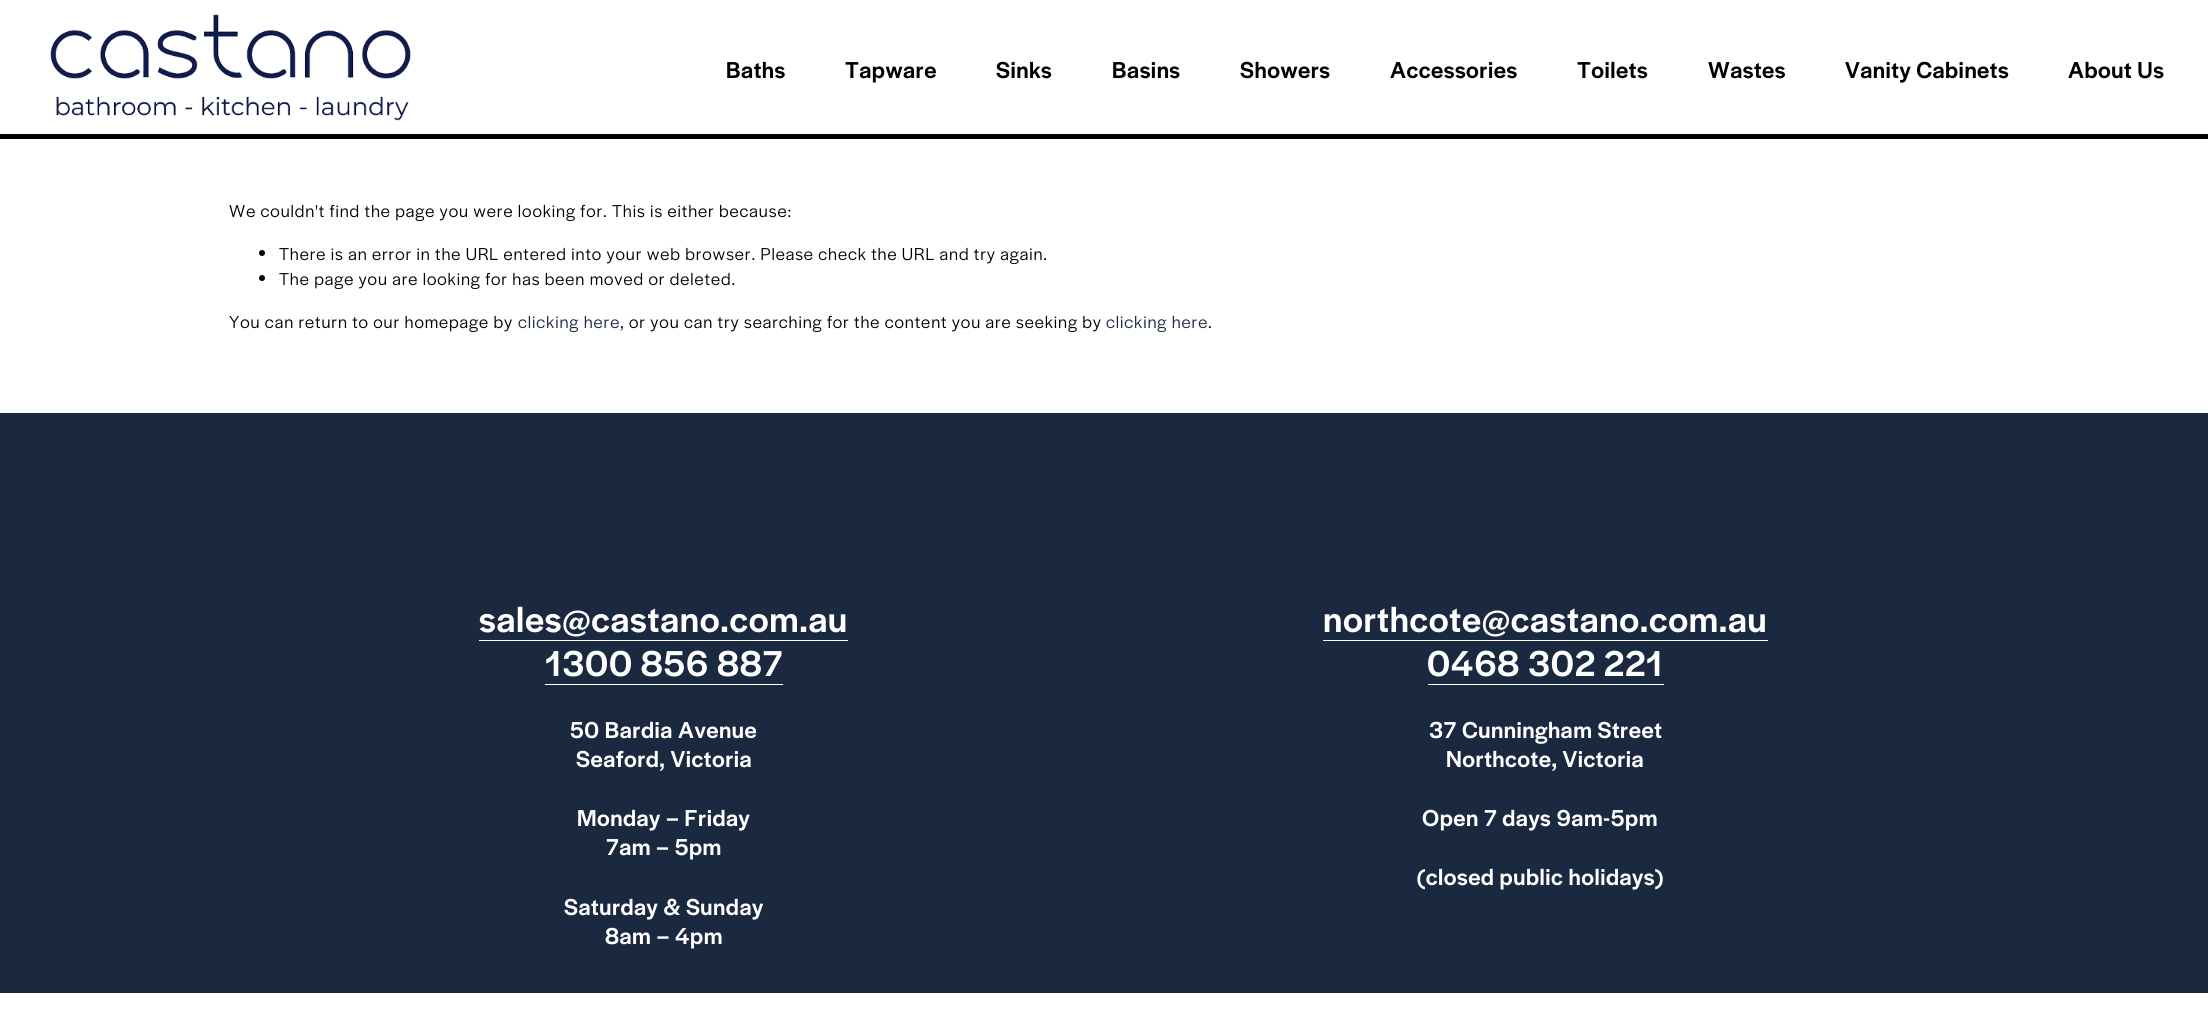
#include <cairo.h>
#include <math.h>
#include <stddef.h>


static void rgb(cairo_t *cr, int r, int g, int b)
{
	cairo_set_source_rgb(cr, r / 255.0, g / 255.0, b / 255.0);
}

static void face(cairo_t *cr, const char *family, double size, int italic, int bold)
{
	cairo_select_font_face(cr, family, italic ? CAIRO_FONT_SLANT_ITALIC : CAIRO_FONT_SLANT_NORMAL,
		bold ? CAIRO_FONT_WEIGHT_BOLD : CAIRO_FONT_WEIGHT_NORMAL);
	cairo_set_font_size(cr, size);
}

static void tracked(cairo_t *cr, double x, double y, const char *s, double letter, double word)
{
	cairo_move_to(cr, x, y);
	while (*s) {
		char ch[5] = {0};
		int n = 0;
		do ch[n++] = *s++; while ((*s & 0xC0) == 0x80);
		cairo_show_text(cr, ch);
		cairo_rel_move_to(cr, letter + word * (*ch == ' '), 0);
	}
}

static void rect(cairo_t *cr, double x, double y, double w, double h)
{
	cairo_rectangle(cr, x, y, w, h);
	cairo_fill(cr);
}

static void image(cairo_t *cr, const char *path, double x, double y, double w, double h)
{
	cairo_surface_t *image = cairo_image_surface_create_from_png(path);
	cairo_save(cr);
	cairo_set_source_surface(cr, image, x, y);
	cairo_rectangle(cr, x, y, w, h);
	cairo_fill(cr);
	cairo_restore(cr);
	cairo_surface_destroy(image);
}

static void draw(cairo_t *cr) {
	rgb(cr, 255, 255, 255);
	cairo_paint(cr);
	image(cr, "image0.png", 50, 14, 361, 107);
	face(cr, "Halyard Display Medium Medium", 24, 0, 0);
	rgb(cr, 0, 0, 0);
	tracked(cr, 726, 78, "Baths", 0.5, 0);
	tracked(cr, 845, 78, "Tapware", 0.5, 0);
	tracked(cr, 996, 78, "Sinks", 0.5, 0);
	tracked(cr, 1112, 78, "Basins", 0.5, 0);
	tracked(cr, 1240, 78, "Showers", 0.5, 0);
	tracked(cr, 1390, 78, "Accessories", 0.5, 0);
	tracked(cr, 1577, 78, "Toilets", 0.5, 0);
	tracked(cr, 1708, 78, "Wastes", 0.5, 0);
	tracked(cr, 1845, 78, "Vanity Cabinets", 0.5, 0);
	tracked(cr, 2068, 78, "About Us", 0.5, 0);
	rect(cr, 0, 134, 2208, 5);
	face(cr, "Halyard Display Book", 18, 0, 0);
	tracked(cr, 229, 217, "We couldn't find the page you were looking for. This is either because:", 0.9, 0);
	cairo_new_path(cr);
	cairo_arc(cr, 262, 253, 3, 0, 2 * M_PI);
	cairo_fill(cr);
	tracked(cr, 279, 260, "There is an error in the URL entered into your web browser. Please check the URL and try again.", 0.9, 0);
	cairo_new_path(cr);
	cairo_arc(cr, 262, 278, 3, 0, 2 * M_PI);
	cairo_fill(cr);
	tracked(cr, 279, 285, "The page you are looking for has been moved or deleted.", 0.9, 0);
	tracked(cr, 229, 328, "You can return to our homepage by", 0.9, 0);
	rgb(cr, 26, 40, 64);
	tracked(cr, 518, 328, "clicking here", 0.9, 0);
	rgb(cr, 0, 0, 0);
	tracked(cr, 620, 328, ", or you can try searching for the content you are seeking by", 0.9, 0);
	rgb(cr, 26, 40, 64);
	tracked(cr, 1106, 328, "clicking here", 0.9, 0);
	rgb(cr, 0, 0, 0);
	tracked(cr, 1208, 328, ".", 0.9, 0);
	rgb(cr, 26, 40, 64);
	rect(cr, 0, 413, 2208, 580);
	face(cr, "Halyard Display Medium Medium", 37.5, 0, 0);
	rgb(cr, 255, 255, 255);
	tracked(cr, 479, 632, "sales@castano.com.au", 0.75, 0);
	rect(cr, 479, 640, 369, 1);
	tracked(cr, 545, 676, "1300 856 887", 0.75, 0);
	rect(cr, 545, 684, 238, 1);
	face(cr, "Halyard Display Medium Medium", 24, 0, 0);
	tracked(cr, 570, 738, "50 Bardia Avenue", 0.5, 0);
	tracked(cr, 576, 767, "Seaford, Victoria", 0.5, 0);
	tracked(cr, 577, 826, "Monday – Friday", 0.5, 0);
	tracked(cr, 606, 855, "7am – 5pm", 0.5, 0);
	tracked(cr, 564, 915, "Saturday & Sunday", 0.5, 0);
	tracked(cr, 605, 944, "8am – 4pm", 0.5, 0);
	face(cr, "Halyard Display Medium Medium", 37.5, 0, 0);
	tracked(cr, 1323, 632, "northcote@castano.com.au", 0.75, 0);
	rect(cr, 1323, 640, 445, 1);
	tracked(cr, 1427, 676, "0468 302 221", 0.75, 0);
	rect(cr, 1428, 684, 236, 1);
	face(cr, "Halyard Display Medium Medium", 24, 0, 0);
	tracked(cr, 1429, 738, "37 Cunningham Street", 0.5, 0);
	tracked(cr, 1446, 767, "Northcote, Victoria", 0.5, 0);
	tracked(cr, 1422, 826, "Open 7 days 9am-5pm", 0.5, 0);
	tracked(cr, 1417, 885, "(closed public holidays)", 0.5, 0);
}

int main(void) {
	cairo_surface_t *surface = cairo_image_surface_create(CAIRO_FORMAT_RGB24, 2208, 1035);
	cairo_t *cr = cairo_create(surface);
	cairo_font_options_t *options = cairo_font_options_create();
	cairo_font_options_set_hint_metrics(options, CAIRO_HINT_METRICS_OFF);
	cairo_font_options_set_hint_style(options, CAIRO_HINT_STYLE_NONE);
	cairo_set_font_options(cr, options);
	cairo_set_miter_limit(cr, 4);
	draw(cr);
	cairo_surface_write_to_png(surface, "render.png");
	cairo_font_options_destroy(options);
	cairo_destroy(cr);
	cairo_surface_destroy(surface);
	return 0;
}
